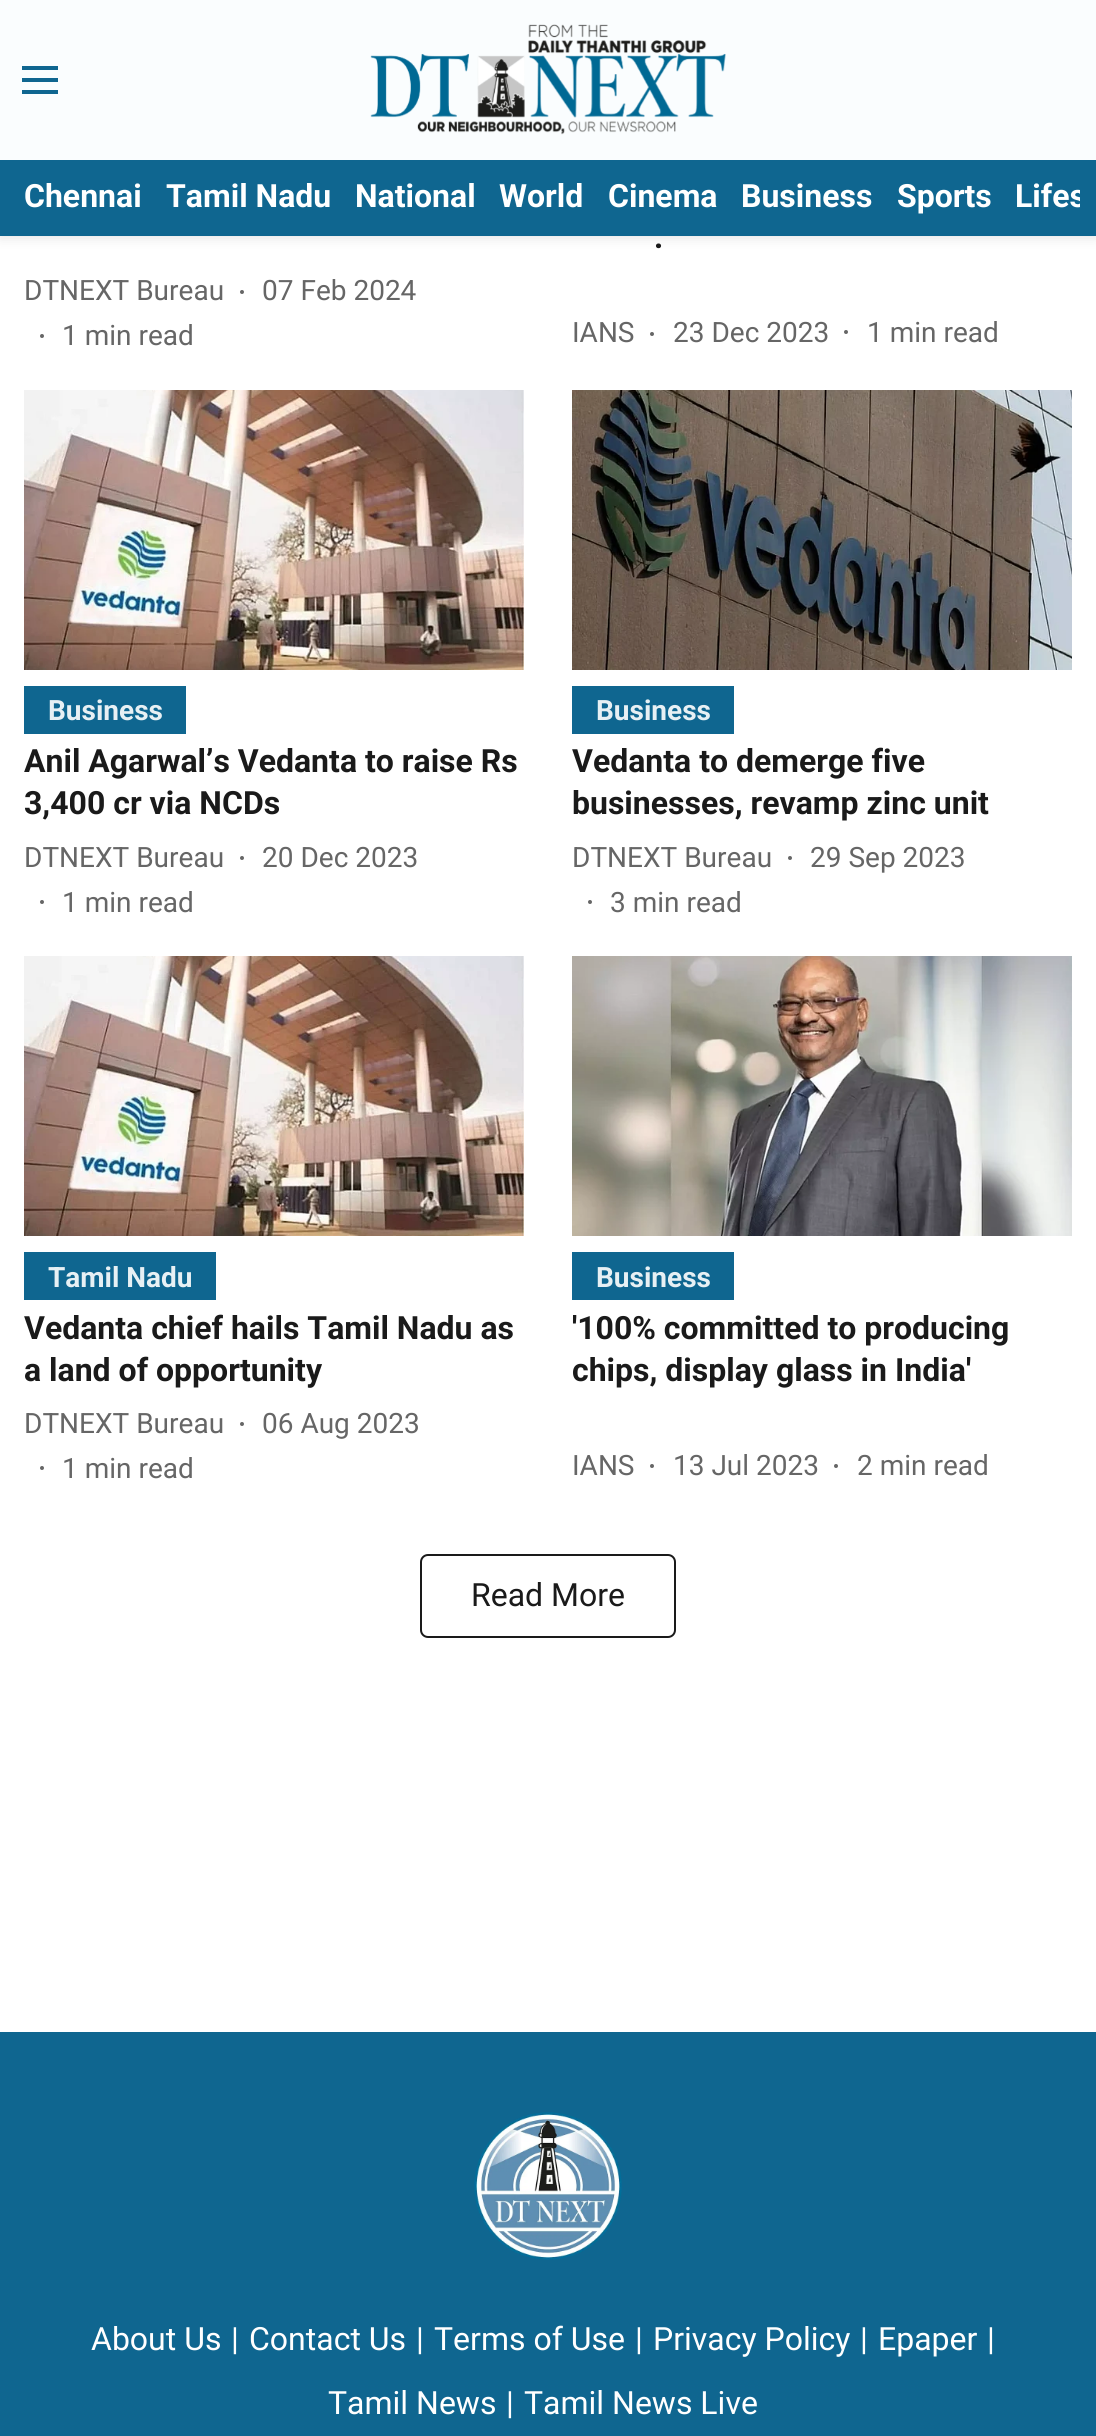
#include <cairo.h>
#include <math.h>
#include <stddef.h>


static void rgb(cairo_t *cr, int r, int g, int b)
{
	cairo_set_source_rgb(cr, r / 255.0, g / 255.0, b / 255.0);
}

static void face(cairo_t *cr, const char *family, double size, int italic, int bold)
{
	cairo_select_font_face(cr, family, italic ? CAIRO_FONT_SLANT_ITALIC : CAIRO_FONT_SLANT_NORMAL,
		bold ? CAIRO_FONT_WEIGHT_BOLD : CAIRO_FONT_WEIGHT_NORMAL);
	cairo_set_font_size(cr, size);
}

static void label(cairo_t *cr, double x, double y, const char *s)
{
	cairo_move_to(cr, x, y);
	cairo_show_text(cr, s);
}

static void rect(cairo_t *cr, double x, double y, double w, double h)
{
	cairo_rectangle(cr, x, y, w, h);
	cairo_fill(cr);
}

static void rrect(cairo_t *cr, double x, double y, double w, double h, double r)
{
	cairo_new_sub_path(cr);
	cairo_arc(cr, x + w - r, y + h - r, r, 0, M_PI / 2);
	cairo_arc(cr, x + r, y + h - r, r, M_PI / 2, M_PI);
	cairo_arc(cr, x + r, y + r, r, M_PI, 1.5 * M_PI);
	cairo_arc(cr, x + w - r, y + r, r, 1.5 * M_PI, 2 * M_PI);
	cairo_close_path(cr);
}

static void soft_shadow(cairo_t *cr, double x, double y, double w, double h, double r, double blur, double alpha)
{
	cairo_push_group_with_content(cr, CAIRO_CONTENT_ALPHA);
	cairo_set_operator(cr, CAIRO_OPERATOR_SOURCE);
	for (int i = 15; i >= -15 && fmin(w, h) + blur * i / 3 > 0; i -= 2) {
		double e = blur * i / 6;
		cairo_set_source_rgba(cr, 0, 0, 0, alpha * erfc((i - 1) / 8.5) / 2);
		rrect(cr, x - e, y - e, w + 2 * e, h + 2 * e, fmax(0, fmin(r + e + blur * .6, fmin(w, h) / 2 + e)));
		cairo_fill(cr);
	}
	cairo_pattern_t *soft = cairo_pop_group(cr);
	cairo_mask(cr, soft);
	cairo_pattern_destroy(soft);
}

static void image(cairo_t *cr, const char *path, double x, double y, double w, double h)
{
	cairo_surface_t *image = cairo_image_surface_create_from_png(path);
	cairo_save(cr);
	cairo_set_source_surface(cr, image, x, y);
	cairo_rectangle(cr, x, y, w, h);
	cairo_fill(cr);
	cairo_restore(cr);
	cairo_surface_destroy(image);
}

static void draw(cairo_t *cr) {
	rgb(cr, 255, 255, 255);
	cairo_paint(cr);
	rgb(cr, 0, 0, 0);
	soft_shadow(cr, 0, 2, 1096, 236, 0, 6, 0.1);
	rgb(cr, 250, 253, 254);
	rect(cr, 0, 0, 1096, 160);
	image(cr, "image0.png", 22, 66, 36, 28);
	image(cr, "image1.png", 370, 24, 356, 111);
	rgb(cr, 15, 102, 144);
	rect(cr, 0, 160, 1096, 76);
	face(cr, "Roboto", 32, 0, 1);
	rgb(cr, 255, 255, 255);
	label(cr, 24, 207, "Chennai");
	label(cr, 166, 207, "Tamil Nadu");
	label(cr, 355, 207, "National");
	label(cr, 499, 207, "World");
	label(cr, 608, 207, "Cinema");
	label(cr, 741, 207, "Business");
	label(cr, 897, 207, "Sports");
	cairo_save(cr);
	cairo_rectangle(cr, 0, 160, 1080, 76);
	cairo_clip(cr);
	label(cr, 1015, 207, "Lifes");
	cairo_restore(cr);
	face(cr, "Roboto", 28, 0, 0);
	rgb(cr, 102, 102, 102);
	label(cr, 24, 300, "DTNEXT Bureau");
	cairo_new_path(cr);
	cairo_arc(cr, 242, 292, 2, 0, 2 * M_PI);
	cairo_fill(cr);
	label(cr, 262, 300, "07 Feb 2024");
	cairo_new_path(cr);
	cairo_arc(cr, 42, 336, 2, 0, 2 * M_PI);
	cairo_fill(cr);
	label(cr, 62, 345, "1 min read");
	face(cr, "Roboto", 32, 0, 1);
	rgb(cr, 26, 26, 26);
	label(cr, 654, 248, ".");
	face(cr, "Roboto", 28, 0, 0);
	rgb(cr, 102, 102, 102);
	label(cr, 572, 342, "IANS");
	cairo_new_path(cr);
	cairo_arc(cr, 652, 334, 2, 0, 2 * M_PI);
	cairo_fill(cr);
	label(cr, 673, 342, "23 Dec 2023");
	cairo_new_path(cr);
	cairo_arc(cr, 846, 332, 2, 0, 2 * M_PI);
	cairo_fill(cr);
	label(cr, 867, 342, "1 min read");
	image(cr, "image2.png", 24, 390, 500, 280);
	rgb(cr, 15, 102, 144);
	rect(cr, 24, 686, 162, 48);
	face(cr, "Roboto", 28, 0, 1);
	rgb(cr, 231, 240, 244);
	label(cr, 48, 720, "Business");
	face(cr, "Roboto", 32, 0, 1);
	rgb(cr, 26, 26, 26);
	label(cr, 24, 772, "Anil Agarwal’s Vedanta to raise Rs");
	label(cr, 24, 814, "3,400 cr via NCDs");
	face(cr, "Roboto", 28, 0, 0);
	rgb(cr, 102, 102, 102);
	label(cr, 24, 867, "DTNEXT Bureau");
	cairo_new_path(cr);
	cairo_arc(cr, 242, 858, 2, 0, 2 * M_PI);
	cairo_fill(cr);
	label(cr, 262, 867, "20 Dec 2023");
	cairo_new_path(cr);
	cairo_arc(cr, 42, 902, 2, 0, 2 * M_PI);
	cairo_fill(cr);
	label(cr, 62, 912, "1 min read");
	image(cr, "image3.png", 572, 390, 500, 280);
	rgb(cr, 15, 102, 144);
	rect(cr, 572, 686, 162, 48);
	face(cr, "Roboto", 28, 0, 1);
	rgb(cr, 231, 240, 244);
	label(cr, 596, 720, "Business");
	face(cr, "Roboto", 32, 0, 1);
	rgb(cr, 26, 26, 26);
	label(cr, 572, 772, "Vedanta to demerge five");
	label(cr, 572, 814, "businesses, revamp zinc unit");
	face(cr, "Roboto", 28, 0, 0);
	rgb(cr, 102, 102, 102);
	label(cr, 572, 867, "DTNEXT Bureau");
	cairo_new_path(cr);
	cairo_arc(cr, 790, 858, 2, 0, 2 * M_PI);
	cairo_fill(cr);
	label(cr, 810, 867, "29 Sep 2023");
	cairo_new_path(cr);
	cairo_arc(cr, 590, 902, 2, 0, 2 * M_PI);
	cairo_fill(cr);
	label(cr, 610, 912, "3 min read");
	image(cr, "image4.png", 24, 956, 500, 280);
	rgb(cr, 15, 102, 144);
	rect(cr, 24, 1252, 192, 48);
	face(cr, "Roboto", 28, 0, 1);
	rgb(cr, 231, 240, 244);
	label(cr, 48, 1287, "Tamil Nadu");
	face(cr, "Roboto", 32, 0, 1);
	rgb(cr, 26, 26, 26);
	label(cr, 24, 1339, "Vedanta chief hails Tamil Nadu as");
	label(cr, 24, 1381, "a land of opportunity");
	face(cr, "Roboto", 28, 0, 0);
	rgb(cr, 102, 102, 102);
	label(cr, 24, 1433, "DTNEXT Bureau");
	cairo_new_path(cr);
	cairo_arc(cr, 242, 1424, 2, 0, 2 * M_PI);
	cairo_fill(cr);
	label(cr, 262, 1433, "06 Aug 2023");
	cairo_new_path(cr);
	cairo_arc(cr, 42, 1468, 2, 0, 2 * M_PI);
	cairo_fill(cr);
	label(cr, 62, 1478, "1 min read");
	image(cr, "image5.png", 572, 956, 500, 280);
	rgb(cr, 15, 102, 144);
	rect(cr, 572, 1252, 162, 48);
	face(cr, "Roboto", 28, 0, 1);
	rgb(cr, 231, 240, 244);
	label(cr, 596, 1287, "Business");
	face(cr, "Roboto", 32, 0, 1);
	rgb(cr, 26, 26, 26);
	label(cr, 572, 1339, "'100% committed to producing");
	label(cr, 572, 1381, "chips, display glass in India'");
	face(cr, "Roboto", 28, 0, 0);
	rgb(cr, 102, 102, 102);
	label(cr, 572, 1475, "IANS");
	cairo_new_path(cr);
	cairo_arc(cr, 652, 1466, 2, 0, 2 * M_PI);
	cairo_fill(cr);
	label(cr, 673, 1475, "13 Jul 2023");
	cairo_new_path(cr);
	cairo_arc(cr, 836, 1466, 2, 0, 2 * M_PI);
	cairo_fill(cr);
	label(cr, 857, 1475, "2 min read");
	rrect(cr, 421, 1555, 254, 82, 7);
	rgb(cr, 26, 26, 26);
	cairo_stroke(cr);
	face(cr, "Roboto", 32, 0, 0);
	label(cr, 471, 1606, "Read More");
	rgb(cr, 15, 102, 144);
	rect(cr, 0, 2032, 1096, 404);
	image(cr, "image6.png", 474, 2112, 148, 148);
	rgb(cr, 255, 255, 255);
	label(cr, 91, 2350, "About Us");
	label(cr, 231, 2350, "|");
	label(cr, 249, 2350, "Contact Us");
	label(cr, 416, 2350, "|");
	label(cr, 434, 2350, "Terms of Use");
	label(cr, 635, 2350, "|");
	label(cr, 653, 2350, "Privacy Policy");
	label(cr, 860, 2350, "|");
	label(cr, 878, 2350, "Epaper");
	label(cr, 987, 2350, "|");
	label(cr, 328, 2414, "Tamil News");
	label(cr, 506, 2414, "|");
	label(cr, 524, 2414, "Tamil News Live");
}

int main(void) {
	cairo_surface_t *surface = cairo_image_surface_create(CAIRO_FORMAT_RGB24, 1096, 2436);
	cairo_t *cr = cairo_create(surface);
	cairo_font_options_t *options = cairo_font_options_create();
	cairo_font_options_set_hint_metrics(options, CAIRO_HINT_METRICS_OFF);
	cairo_font_options_set_hint_style(options, CAIRO_HINT_STYLE_NONE);
	cairo_set_font_options(cr, options);
	cairo_set_miter_limit(cr, 4);
	draw(cr);
	cairo_surface_write_to_png(surface, "render.png");
	cairo_font_options_destroy(options);
	cairo_destroy(cr);
	cairo_surface_destroy(surface);
	return 0;
}
